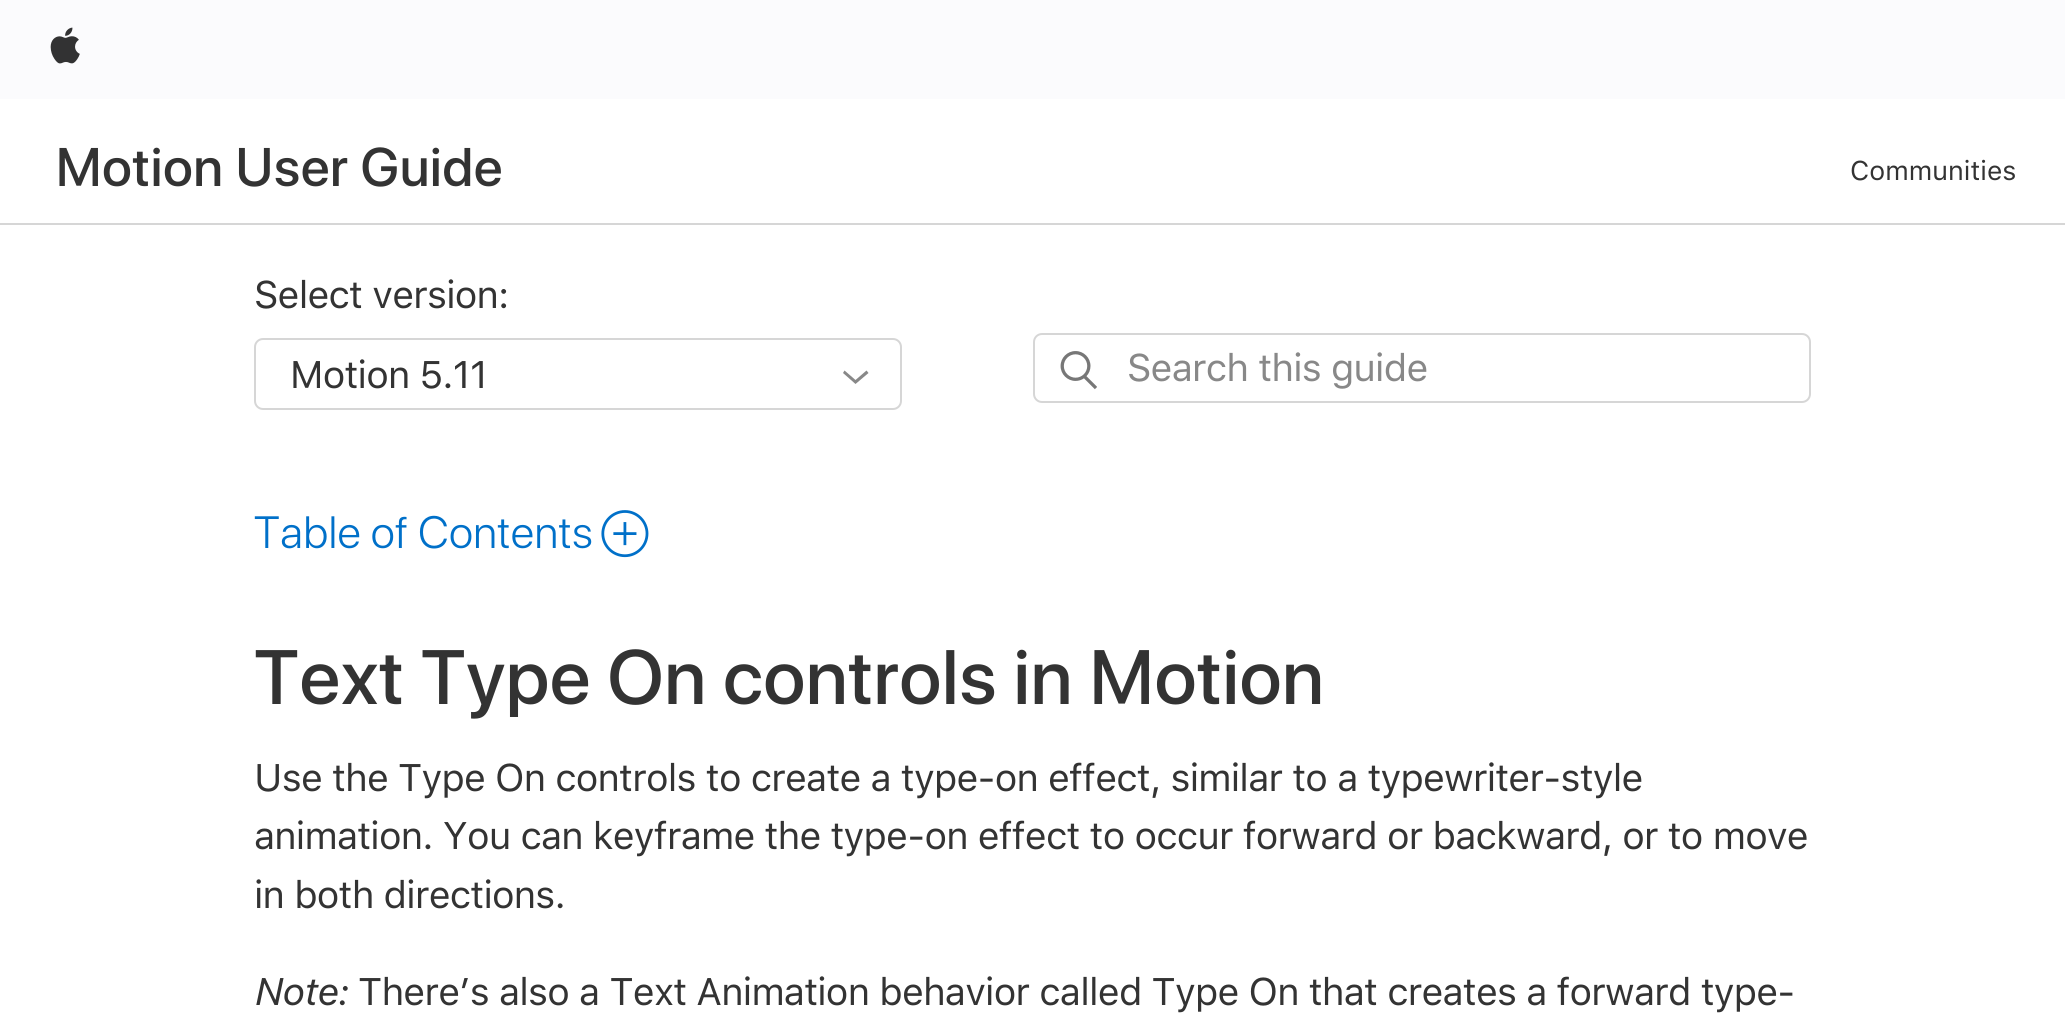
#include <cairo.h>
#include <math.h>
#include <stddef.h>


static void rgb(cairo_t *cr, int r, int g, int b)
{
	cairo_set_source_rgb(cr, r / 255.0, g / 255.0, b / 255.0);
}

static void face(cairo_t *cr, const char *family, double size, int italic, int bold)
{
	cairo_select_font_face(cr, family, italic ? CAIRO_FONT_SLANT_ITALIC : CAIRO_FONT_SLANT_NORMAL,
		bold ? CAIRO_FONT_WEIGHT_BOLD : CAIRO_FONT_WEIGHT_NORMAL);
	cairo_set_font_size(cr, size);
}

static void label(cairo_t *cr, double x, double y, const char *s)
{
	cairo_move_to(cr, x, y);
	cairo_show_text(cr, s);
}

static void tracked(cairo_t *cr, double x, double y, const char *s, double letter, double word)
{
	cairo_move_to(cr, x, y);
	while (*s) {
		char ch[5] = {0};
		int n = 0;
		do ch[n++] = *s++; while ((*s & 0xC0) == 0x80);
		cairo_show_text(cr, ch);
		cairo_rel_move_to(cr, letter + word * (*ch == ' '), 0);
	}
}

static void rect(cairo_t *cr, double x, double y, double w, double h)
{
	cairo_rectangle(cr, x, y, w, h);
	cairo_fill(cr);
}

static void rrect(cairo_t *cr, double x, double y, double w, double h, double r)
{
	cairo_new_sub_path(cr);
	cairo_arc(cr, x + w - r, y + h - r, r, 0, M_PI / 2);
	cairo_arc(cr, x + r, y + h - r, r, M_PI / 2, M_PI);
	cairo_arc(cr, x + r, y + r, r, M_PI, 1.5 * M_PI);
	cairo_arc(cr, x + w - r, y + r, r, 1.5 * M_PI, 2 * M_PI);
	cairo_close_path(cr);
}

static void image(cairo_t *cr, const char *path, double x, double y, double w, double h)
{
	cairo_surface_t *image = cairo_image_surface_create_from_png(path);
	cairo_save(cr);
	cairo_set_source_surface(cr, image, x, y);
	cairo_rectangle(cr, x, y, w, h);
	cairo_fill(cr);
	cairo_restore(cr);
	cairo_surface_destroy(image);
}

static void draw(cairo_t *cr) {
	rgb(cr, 255, 255, 255);
	cairo_paint(cr);
	rgb(cr, 251, 251, 253);
	rect(cr, 0, 0, 2065, 99);
	image(cr, "image0.png", 50, 27, 30, 37);
	face(cr, "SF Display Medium", 54, 0, 0);
	rgb(cr, 51, 51, 51);
	tracked(cr, 56, 186, "Motion User Guide", 0.8, 0);
	face(cr, "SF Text", 27, 0, 0);
	label(cr, 1850, 180, "Communities");
	rgb(cr, 214, 214, 214);
	rect(cr, 0, 223, 2065, 2);
	face(cr, "SF Text", 38.25, 0, 0);
	rgb(cr, 51, 51, 51);
	tracked(cr, 254, 308, "Select version:", -0.8, 0);
	rrect(cr, 255, 339, 646, 70, 8);
	rgb(cr, 214, 214, 214);
	cairo_stroke(cr);
	rgb(cr, 51, 51, 51);
	tracked(cr, 290, 388, "Motion 5.11", -0.8, 0);
	rgb(cr, 136, 136, 136);
	cairo_new_path(cr);
	cairo_move_to(cr, 844.5, 370.5);
	cairo_line_to(cr, 843, 373);
	cairo_line_to(cr, 855.5, 384);
	cairo_line_to(cr, 868.5, 373);
	cairo_line_to(cr, 866.5, 370.5);
	cairo_line_to(cr, 855.5, 380);
	cairo_close_path(cr);
	cairo_fill(cr);
	rrect(cr, 1034, 334, 776, 68, 8);
	rgb(cr, 214, 214, 214);
	cairo_stroke(cr);
	image(cr, "image1.png", 1060, 351, 37, 39);
	rgb(cr, 136, 136, 136);
	tracked(cr, 1127, 381, "Search this guide", -0.8, 0);
	face(cr, "SF Display Light", 45, 0, 0);
	rgb(cr, 0, 112, 201);
	tracked(cr, 254, 548, "Table of Contents", 0.75, 0);
	image(cr, "image2.png", 601, 510, 48, 48);
	face(cr, "SF Display Medium", 76.5, 0, 0);
	rgb(cr, 51, 51, 51);
	tracked(cr, 254, 704, "Text Type On controls in Motion", 0.75, 0);
	face(cr, "SF Text", 38.25, 0, 0);
	tracked(cr, 254, 791, "Use the Type On controls to create a type-on effect, similar to a typewriter-style", -0.8, 0);
	tracked(cr, 254, 849, "animation. You can keyframe the type-on effect to occur forward or backward, or to move", -0.8, 0);
	tracked(cr, 254, 908, "in both directions.", -0.8, 0);
	face(cr, "SF Text", 38.25, 1, 0);
	tracked(cr, 254, 1005, "Note:", -0.8, 0);
	face(cr, "SF Text", 38.25, 0, 0);
	tracked(cr, 358, 1005, "There’s also a Text Animation behavior called Type On that creates a forward type-", -0.8, 0);
}

int main(void) {
	cairo_surface_t *surface = cairo_image_surface_create(CAIRO_FORMAT_RGB24, 2065, 1034);
	cairo_t *cr = cairo_create(surface);
	cairo_font_options_t *options = cairo_font_options_create();
	cairo_font_options_set_hint_metrics(options, CAIRO_HINT_METRICS_OFF);
	cairo_font_options_set_hint_style(options, CAIRO_HINT_STYLE_NONE);
	cairo_set_font_options(cr, options);
	cairo_set_miter_limit(cr, 4);
	draw(cr);
	cairo_surface_write_to_png(surface, "render.png");
	cairo_font_options_destroy(options);
	cairo_destroy(cr);
	cairo_surface_destroy(surface);
	return 0;
}
